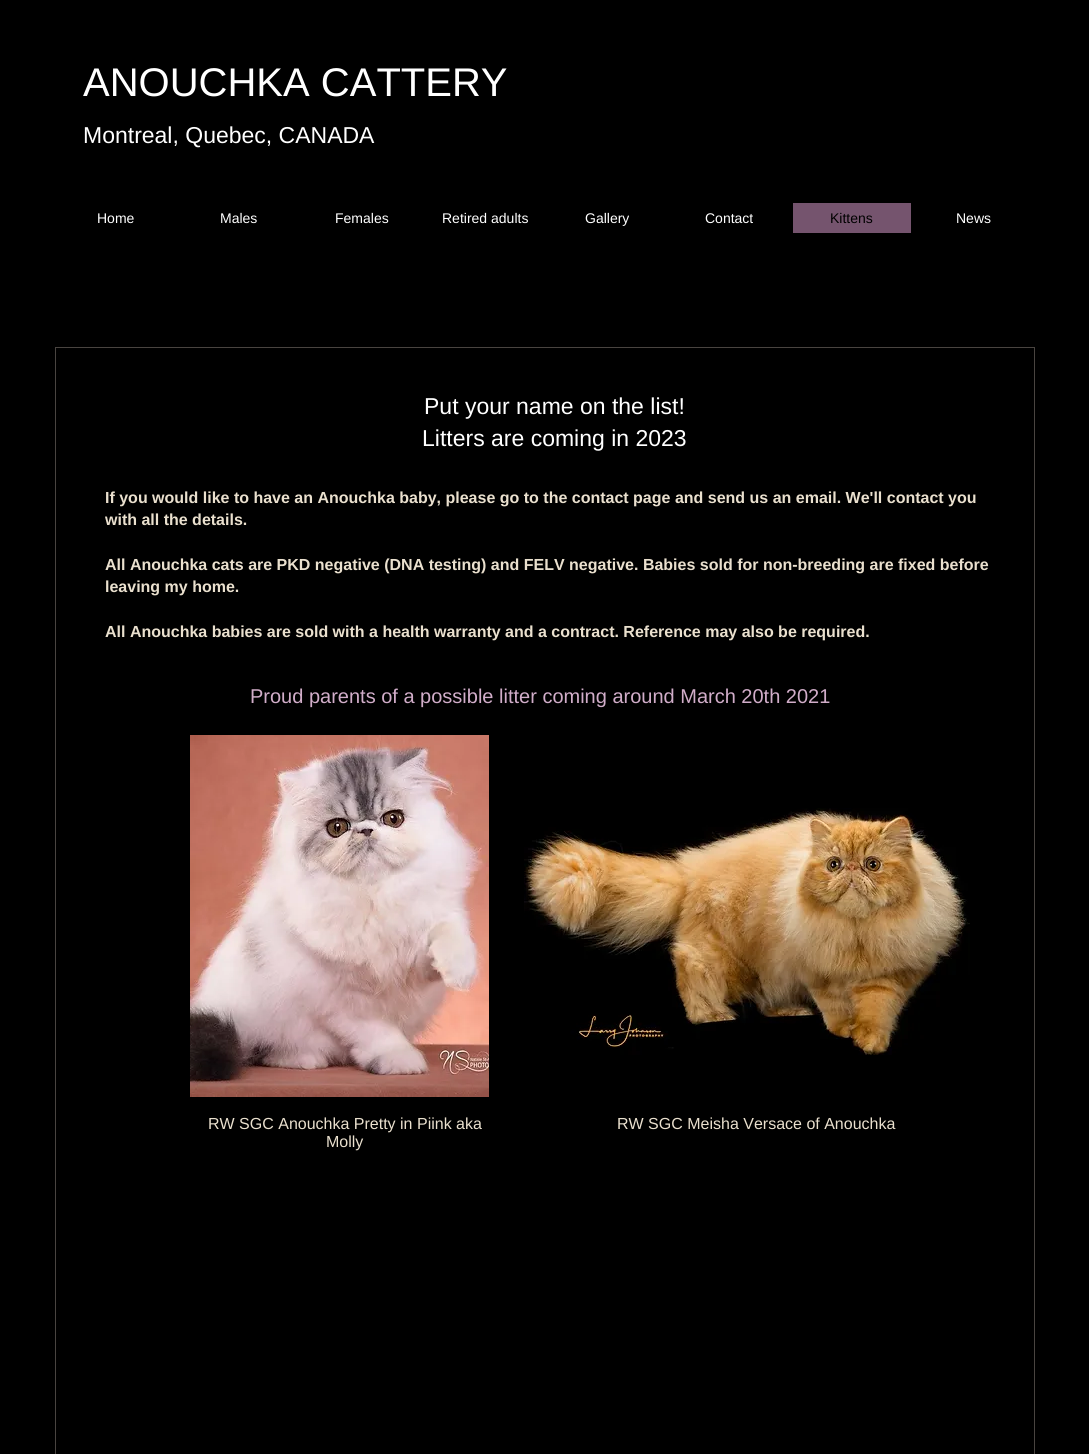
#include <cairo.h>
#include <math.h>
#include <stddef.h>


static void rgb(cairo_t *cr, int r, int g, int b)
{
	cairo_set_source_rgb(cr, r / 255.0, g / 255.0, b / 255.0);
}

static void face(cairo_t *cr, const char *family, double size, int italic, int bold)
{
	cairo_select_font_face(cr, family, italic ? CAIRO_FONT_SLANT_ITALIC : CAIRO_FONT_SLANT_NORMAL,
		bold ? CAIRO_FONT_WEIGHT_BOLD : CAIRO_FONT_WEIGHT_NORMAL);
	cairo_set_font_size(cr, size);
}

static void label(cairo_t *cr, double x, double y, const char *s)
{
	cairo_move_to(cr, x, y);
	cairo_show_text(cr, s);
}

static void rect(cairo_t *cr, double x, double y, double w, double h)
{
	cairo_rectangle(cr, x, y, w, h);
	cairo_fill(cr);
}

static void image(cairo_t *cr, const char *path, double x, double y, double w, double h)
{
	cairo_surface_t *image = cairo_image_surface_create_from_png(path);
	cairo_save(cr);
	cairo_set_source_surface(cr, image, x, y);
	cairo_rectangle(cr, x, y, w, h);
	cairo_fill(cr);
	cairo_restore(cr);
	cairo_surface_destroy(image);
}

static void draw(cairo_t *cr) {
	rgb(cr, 0, 0, 0);
	cairo_paint(cr);
	face(cr, "Liberation Sans", 40, 0, 0);
	rgb(cr, 255, 255, 255);
	label(cr, 83, 96, "ANOUCHKA CATTERY");
	face(cr, "Liberation Sans", 23, 0, 0);
	label(cr, 83, 143, "Montreal, Quebec, CANADA");
	face(cr, "Liberation Sans", 14, 0, 0);
	label(cr, 97, 223, "Home");
	label(cr, 220, 223, "Males");
	label(cr, 335, 223, "Females");
	label(cr, 442, 223, "Retired adults");
	label(cr, 585, 223, "Gallery");
	label(cr, 705, 223, "Contact");
	rgb(cr, 117, 84, 110);
	rect(cr, 793, 203, 118, 30);
	rgb(cr, 0, 0, 0);
	label(cr, 830, 223, "Kittens");
	rgb(cr, 255, 255, 255);
	label(cr, 956, 223, "News");
	cairo_rectangle(cr, 55.5, 347.5, 979, 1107);
	rgb(cr, 73, 68, 64);
	cairo_set_line_width(cr, 1);
	cairo_stroke(cr);
	face(cr, "Liberation Sans", 23, 0, 0);
	rgb(cr, 255, 255, 255);
	label(cr, 424, 414, "Put your name on the list!");
	label(cr, 422, 446, "Litters are coming in 2023");
	face(cr, "Liberation Sans", 16, 0, 1);
	rgb(cr, 234, 224, 206);
	label(cr, 105, 503, "If you would like to have an Anouchka baby, please go to the contact page and send us an email. We'll contact you");
	label(cr, 105, 525, "with all the details.");
	label(cr, 105, 570, "All Anouchka cats are PKD negative (DNA testing) and FELV negative. Babies sold for non-breeding are fixed before");
	label(cr, 105, 592, "leaving my home.");
	label(cr, 105, 637, "All Anouchka babies are sold with a health warranty and a contract. Reference may also be required.");
	face(cr, "Liberation Sans", 20, 0, 0);
	rgb(cr, 209, 173, 201);
	label(cr, 250, 703, "Proud parents of a possible litter coming around March 20th 2021");
	image(cr, "image0.png", 190, 735, 299, 362);
	image(cr, "image1.png", 524, 808, 446, 247);
	face(cr, "Liberation Sans", 16, 0, 0);
	rgb(cr, 234, 224, 206);
	label(cr, 208, 1129, "RW SGC Anouchka Pretty in Piink aka");
	label(cr, 326, 1147, "Molly");
	label(cr, 617, 1129, "RW SGC Meisha Versace of Anouchka");
}

int main(void) {
	cairo_surface_t *surface = cairo_image_surface_create(CAIRO_FORMAT_RGB24, 1089, 1454);
	cairo_t *cr = cairo_create(surface);
	cairo_font_options_t *options = cairo_font_options_create();
	cairo_font_options_set_hint_metrics(options, CAIRO_HINT_METRICS_OFF);
	cairo_font_options_set_hint_style(options, CAIRO_HINT_STYLE_NONE);
	cairo_set_font_options(cr, options);
	cairo_set_miter_limit(cr, 4);
	draw(cr);
	cairo_surface_write_to_png(surface, "render.png");
	cairo_font_options_destroy(options);
	cairo_destroy(cr);
	cairo_surface_destroy(surface);
	return 0;
}
